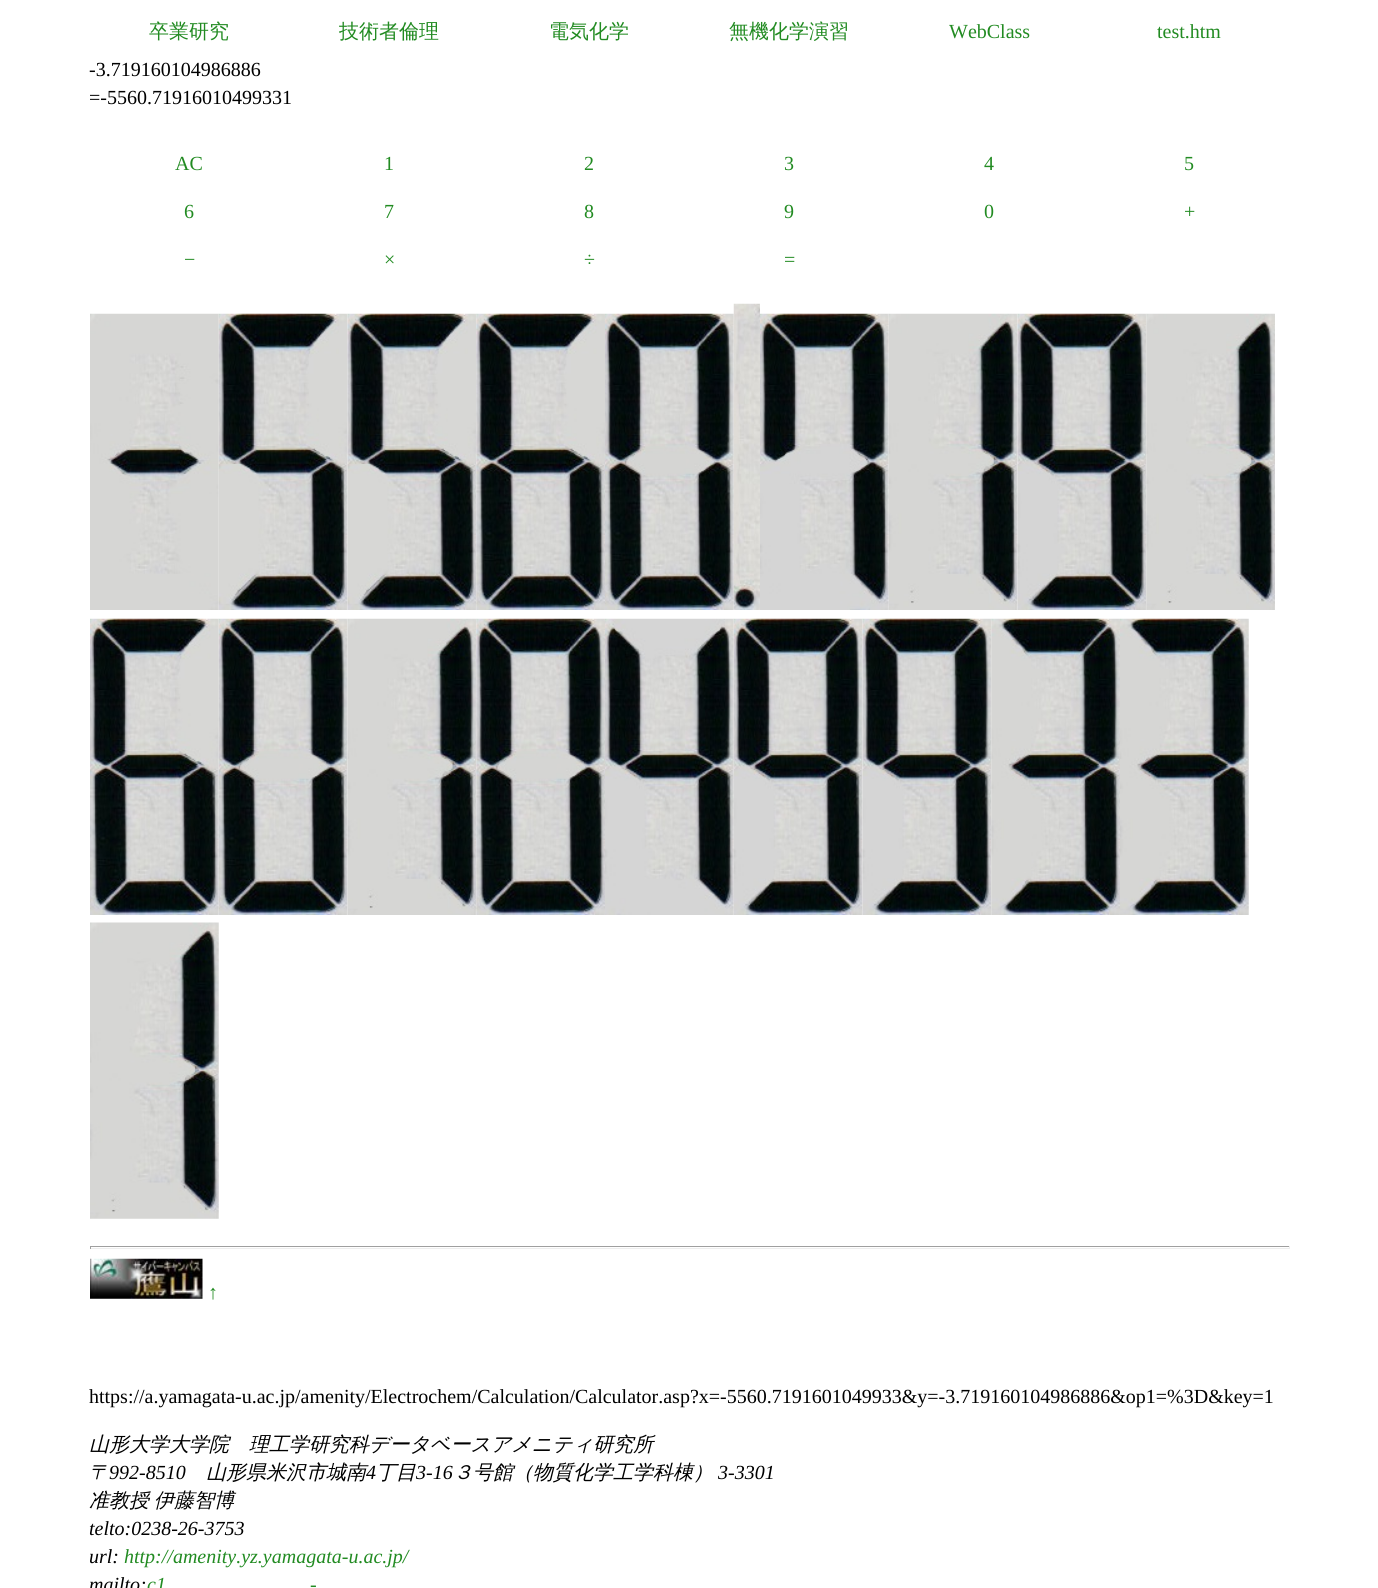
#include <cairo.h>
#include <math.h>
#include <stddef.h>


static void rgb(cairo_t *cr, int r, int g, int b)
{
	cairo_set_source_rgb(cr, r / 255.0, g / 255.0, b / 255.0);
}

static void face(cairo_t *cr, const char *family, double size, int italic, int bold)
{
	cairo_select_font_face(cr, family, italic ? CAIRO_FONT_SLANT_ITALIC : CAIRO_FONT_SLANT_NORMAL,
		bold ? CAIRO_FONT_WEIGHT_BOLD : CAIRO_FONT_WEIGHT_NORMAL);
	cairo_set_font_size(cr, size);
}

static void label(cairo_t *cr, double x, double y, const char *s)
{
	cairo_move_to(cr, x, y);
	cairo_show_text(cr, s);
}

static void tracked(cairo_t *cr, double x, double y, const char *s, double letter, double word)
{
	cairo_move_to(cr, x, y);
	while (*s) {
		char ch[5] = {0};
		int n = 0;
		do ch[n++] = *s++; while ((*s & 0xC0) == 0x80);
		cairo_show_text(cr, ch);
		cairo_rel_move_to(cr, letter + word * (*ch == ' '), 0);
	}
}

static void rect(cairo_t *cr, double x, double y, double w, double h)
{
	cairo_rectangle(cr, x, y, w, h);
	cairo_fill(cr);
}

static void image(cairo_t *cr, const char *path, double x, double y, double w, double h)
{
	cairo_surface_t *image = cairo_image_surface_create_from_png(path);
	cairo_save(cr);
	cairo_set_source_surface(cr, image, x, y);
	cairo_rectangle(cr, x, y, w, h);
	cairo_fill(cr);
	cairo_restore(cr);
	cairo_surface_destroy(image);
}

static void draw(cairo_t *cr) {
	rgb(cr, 255, 255, 255);
	cairo_paint(cr);
	face(cr, "WenQuanYi Zen Hei Medium", 20, 0, 0);
	rgb(cr, 34, 139, 34);
	label(cr, 149, 38, "卒業研究");
	label(cr, 339, 38, "技術者倫理");
	label(cr, 549, 38, "電気化学");
	label(cr, 729, 38, "無機化学演習");
	face(cr, "Liberation Serif", 20, 0, 0);
	label(cr, 949, 38, "WebClass");
	label(cr, 1157, 38, "test.htm");
	rgb(cr, 0, 0, 0);
	label(cr, 89, 76, "-3.719160104986886");
	label(cr, 89, 104, "=-5560.71916010499331");
	rgb(cr, 34, 139, 34);
	label(cr, 175, 170, "AC");
	label(cr, 384, 170, "1");
	label(cr, 584, 170, "2");
	label(cr, 784, 170, "3");
	label(cr, 984, 170, "4");
	label(cr, 1184, 170, "5");
	label(cr, 184, 218, "6");
	label(cr, 384, 218, "7");
	label(cr, 584, 218, "8");
	label(cr, 784, 218, "9");
	label(cr, 984, 218, "0");
	label(cr, 1184, 218, "+");
	label(cr, 184, 266, "−");
	label(cr, 384, 266, "×");
	label(cr, 584, 266, "÷");
	label(cr, 784, 266, "=");
	image(cr, "image0.png", 90, 313, 129, 297);
	image(cr, "image1.png", 218, 313, 130, 297);
	image(cr, "image2.png", 347, 313, 130, 297);
	image(cr, "image3.png", 476, 313, 129, 297);
	image(cr, "image4.png", 605, 313, 129, 297);
	image(cr, "image5.png", 733, 303, 27, 307);
	image(cr, "image6.png", 760, 313, 129, 297);
	image(cr, "image7.png", 888, 313, 130, 297);
	image(cr, "image8.png", 1017, 313, 130, 297);
	image(cr, "image9.png", 1146, 313, 129, 297);
	image(cr, "image10.png", 90, 618, 129, 297);
	image(cr, "image11.png", 218, 618, 130, 297);
	image(cr, "image12.png", 347, 618, 130, 297);
	image(cr, "image13.png", 476, 618, 129, 297);
	image(cr, "image14.png", 605, 618, 129, 297);
	image(cr, "image15.png", 733, 618, 130, 297);
	image(cr, "image16.png", 862, 618, 130, 297);
	image(cr, "image17.png", 991, 618, 129, 297);
	image(cr, "image18.png", 1120, 618, 129, 297);
	image(cr, "image19.png", 90, 922, 129, 297);
	rgb(cr, 159, 159, 159);
	rect(cr, 90, 1246, 1200, 1);
	rgb(cr, 238, 238, 238);
	rect(cr, 1289, 1246, 1, 3);
	rect(cr, 90, 1248, 1200, 1);
	rgb(cr, 159, 159, 159);
	rect(cr, 90, 1246, 1, 3);
	image(cr, "image20.png", 90, 1258, 113, 41);
	rgb(cr, 34, 139, 34);
	label(cr, 208, 1299, "↑");
	rgb(cr, 0, 0, 0);
	label(cr, 89, 1403, "https://a.yamagata-u.ac.jp/amenity/Electrochem/Calculation/Calculator.asp?x=-5560.7191601049933&y=-3.719160104986886&op1=%3D&key=1");
	face(cr, "WenQuanYi Zen Hei Medium", 20, 1, 0);
	label(cr, 89, 1451, "山形大学大学院　理工学研究科データベースアメニティ研究所");
	label(cr, 89, 1479, "〒");
	face(cr, "Liberation Serif", 20, 1, 0);
	label(cr, 109, 1479, "992-8510");
	face(cr, "WenQuanYi Zen Hei Medium", 20, 1, 0);
	label(cr, 206, 1479, "山形県米沢市城南");
	face(cr, "Liberation Serif", 20, 1, 0);
	label(cr, 366, 1479, "4");
	face(cr, "WenQuanYi Zen Hei Medium", 20, 1, 0);
	label(cr, 376, 1479, "丁目");
	face(cr, "Liberation Serif", 20, 1, 0);
	label(cr, 416, 1479, "3-16");
	face(cr, "WenQuanYi Zen Hei Medium", 20, 1, 0);
	label(cr, 453, 1479, "３号館（物質化学工学科棟）");
	face(cr, "Liberation Serif", 20, 1, 0);
	label(cr, 718, 1479, "3-3301");
	face(cr, "WenQuanYi Zen Hei Medium", 20, 1, 0);
	tracked(cr, 89, 1507, "准教授 伊藤智博", 0, -1);
	face(cr, "Liberation Serif", 20, 1, 0);
	label(cr, 89, 1535, "telto:0238-26-3753");
	label(cr, 89, 1563, "url:");
	rgb(cr, 34, 139, 34);
	label(cr, 124, 1563, "http://amenity.yz.yamagata-u.ac.jp/");
	rgb(cr, 0, 0, 0);
	label(cr, 89, 1591, "mailto:");
	rgb(cr, 34, 139, 34);
	label(cr, 147, 1591, "c1");
	label(cr, 310, 1591, "-");
}

int main(void) {
	cairo_surface_t *surface = cairo_image_surface_create(CAIRO_FORMAT_RGB24, 1378, 1588);
	cairo_t *cr = cairo_create(surface);
	cairo_font_options_t *options = cairo_font_options_create();
	cairo_font_options_set_hint_metrics(options, CAIRO_HINT_METRICS_OFF);
	cairo_font_options_set_hint_style(options, CAIRO_HINT_STYLE_NONE);
	cairo_set_font_options(cr, options);
	cairo_set_miter_limit(cr, 4);
	draw(cr);
	cairo_surface_write_to_png(surface, "render.png");
	cairo_font_options_destroy(options);
	cairo_destroy(cr);
	cairo_surface_destroy(surface);
	return 0;
}
